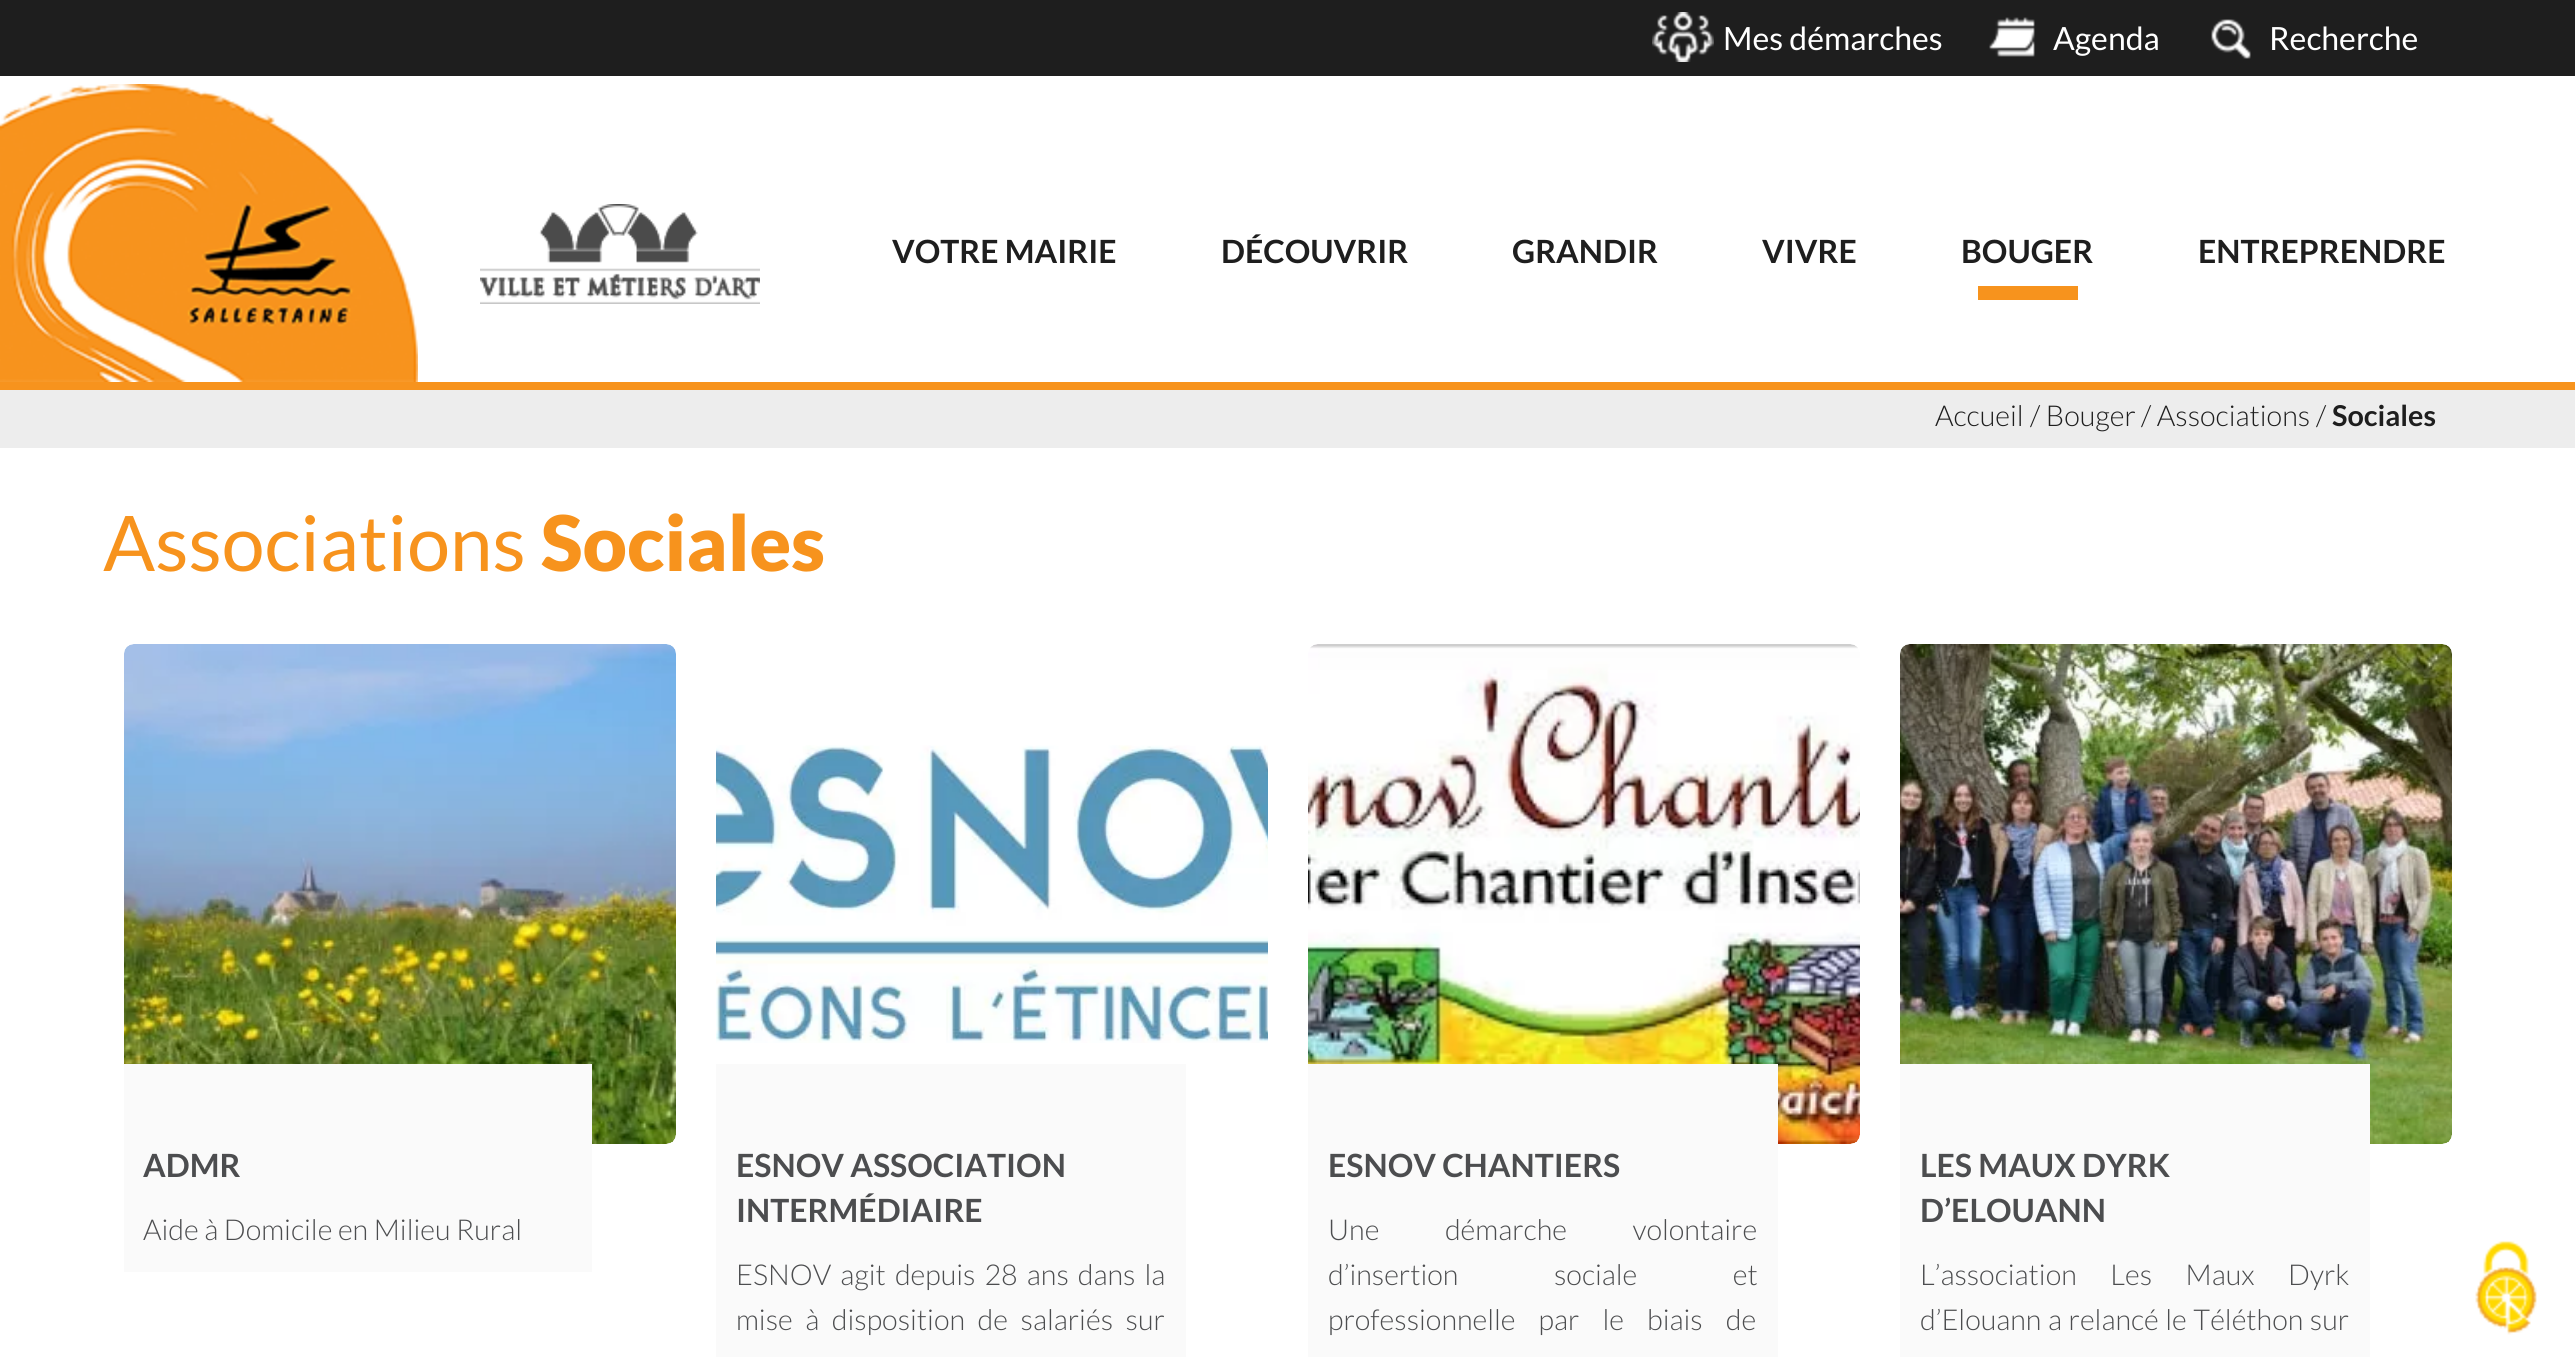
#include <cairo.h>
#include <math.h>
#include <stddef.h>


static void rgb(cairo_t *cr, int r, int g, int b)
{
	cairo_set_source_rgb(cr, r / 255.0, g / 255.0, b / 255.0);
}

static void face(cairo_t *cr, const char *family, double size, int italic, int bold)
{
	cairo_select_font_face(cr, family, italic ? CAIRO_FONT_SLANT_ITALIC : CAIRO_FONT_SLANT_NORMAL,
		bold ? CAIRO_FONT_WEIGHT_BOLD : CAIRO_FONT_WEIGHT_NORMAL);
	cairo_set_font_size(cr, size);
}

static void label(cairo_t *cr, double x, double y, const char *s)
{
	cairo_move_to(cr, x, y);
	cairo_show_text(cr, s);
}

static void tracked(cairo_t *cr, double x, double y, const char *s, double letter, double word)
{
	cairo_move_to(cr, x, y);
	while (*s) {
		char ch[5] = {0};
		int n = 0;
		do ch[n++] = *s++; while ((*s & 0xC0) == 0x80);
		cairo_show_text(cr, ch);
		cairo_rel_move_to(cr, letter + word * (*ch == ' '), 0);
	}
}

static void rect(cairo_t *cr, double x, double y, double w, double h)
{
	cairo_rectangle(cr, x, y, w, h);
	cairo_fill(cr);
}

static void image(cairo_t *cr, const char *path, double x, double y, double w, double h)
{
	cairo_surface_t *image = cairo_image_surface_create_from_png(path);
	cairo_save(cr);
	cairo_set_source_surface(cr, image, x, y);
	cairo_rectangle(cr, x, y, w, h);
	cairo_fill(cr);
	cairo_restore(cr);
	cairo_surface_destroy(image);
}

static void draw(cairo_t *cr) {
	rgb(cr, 255, 255, 255);
	cairo_paint(cr);
	rgb(cr, 247, 147, 29);
	rect(cr, 0, 382, 2575, 8);
	rgb(cr, 30, 30, 30);
	rect(cr, 0, 0, 2575, 76);
	image(cr, "image0.png", 1652, 12, 62, 50);
	face(cr, "Lato", 32, 0, 0);
	rgb(cr, 255, 255, 255);
	label(cr, 1723, 50, "Mes démarches");
	image(cr, "image1.png", 1989, 17, 46, 40);
	label(cr, 2053, 50, "Agenda");
	image(cr, "image2.png", 2211, 19, 40, 40);
	label(cr, 2269, 50, "Recherche");
	image(cr, "image3.png", 0, 84, 418, 298);
	image(cr, "image4.png", 480, 204, 280, 100);
	face(cr, "Lato", 32, 0, 1);
	rgb(cr, 30, 30, 30);
	label(cr, 892, 263, "VOTRE MAIRIE");
	label(cr, 1221, 263, "DÉCOUVRIR");
	label(cr, 1512, 263, "GRANDIR");
	label(cr, 1762, 263, "VIVRE");
	label(cr, 1961, 263, "BOUGER");
	rgb(cr, 247, 147, 29);
	rect(cr, 1978, 286, 100, 14);
	rgb(cr, 30, 30, 30);
	label(cr, 2198, 263, "ENTREPRENDRE");
	rgb(cr, 237, 237, 237);
	rect(cr, 0, 390, 2575, 58);
	face(cr, "Lato Light", 28.75, 0, 0);
	rgb(cr, 30, 30, 30);
	label(cr, 1935, 426, "Accueil");
	label(cr, 2030, 426, "/ Bouger");
	label(cr, 2141, 426, "/ Associations");
	label(cr, 2316, 426, "/");
	face(cr, "Lato", 28.75, 0, 1);
	label(cr, 2332, 426, "Sociales");
	face(cr, "Lato", 76.75, 0, 0);
	rgb(cr, 247, 147, 29);
	label(cr, 103, 571, "Associations");
	face(cr, "Lato Black", 76.75, 0, 0);
	label(cr, 541, 571, "Sociales");
	image(cr, "image5.png", 124, 644, 552, 500);
	rgb(cr, 250, 250, 250);
	rect(cr, 124, 1064, 468, 208);
	face(cr, "Lato", 32, 0, 1);
	rgb(cr, 76, 77, 79);
	label(cr, 143, 1177, "ADMR");
	face(cr, "Lato Light", 28.75, 0, 0);
	label(cr, 143, 1240, "Aide à Domicile en Milieu Rural");
	image(cr, "image6.png", 716, 745, 552, 298);
	rgb(cr, 250, 250, 250);
	rect(cr, 716, 1064, 470, 293);
	face(cr, "Lato", 32, 0, 1);
	rgb(cr, 76, 77, 79);
	label(cr, 736, 1177, "ESNOV ASSOCIATION");
	label(cr, 736, 1222, "INTERMÉDIAIRE");
	face(cr, "Lato Light", 28.75, 0, 0);
	tracked(cr, 736, 1285, "ESNOV agit depuis 28 ans dans la", 0, 3.5);
	tracked(cr, 736, 1330, "mise à disposition de salariés sur", 0, 7);
	image(cr, "image7.png", 1308, 644, 552, 500);
	rgb(cr, 250, 250, 250);
	rect(cr, 1308, 1064, 470, 293);
	face(cr, "Lato", 32, 0, 1);
	rgb(cr, 76, 77, 79);
	label(cr, 1328, 1177, "ESNOV CHANTIERS");
	face(cr, "Lato Light", 28.75, 0, 0);
	tracked(cr, 1328, 1240, "Une démarche volontaire", 0, 60);
	tracked(cr, 1328, 1285, "d’insertion sociale et", 0, 90);
	tracked(cr, 1328, 1330, "professionnelle par le biais de", 0, 17.5);
	image(cr, "image8.png", 1900, 644, 552, 500);
	rgb(cr, 250, 250, 250);
	rect(cr, 1900, 1064, 470, 293);
	face(cr, "Lato", 32, 0, 1);
	rgb(cr, 76, 77, 79);
	label(cr, 1920, 1177, "LES MAUX DYRK");
	label(cr, 1920, 1222, "D’ELOUANN");
	face(cr, "Lato Light", 28.75, 0, 0);
	tracked(cr, 1920, 1285, "L’association Les Maux Dyrk", 0, 28);
	tracked(cr, 1920, 1330, "d’Elouann a relancé le Téléthon sur", 0, 1);
	image(cr, "image9.png", 2475, 1241, 62, 94);
}

int main(void) {
	cairo_surface_t *surface = cairo_image_surface_create(CAIRO_FORMAT_RGB24, 2575, 1357);
	cairo_t *cr = cairo_create(surface);
	cairo_font_options_t *options = cairo_font_options_create();
	cairo_font_options_set_hint_metrics(options, CAIRO_HINT_METRICS_OFF);
	cairo_font_options_set_hint_style(options, CAIRO_HINT_STYLE_NONE);
	cairo_set_font_options(cr, options);
	cairo_set_miter_limit(cr, 4);
	draw(cr);
	cairo_surface_write_to_png(surface, "render.png");
	cairo_font_options_destroy(options);
	cairo_destroy(cr);
	cairo_surface_destroy(surface);
	return 0;
}
